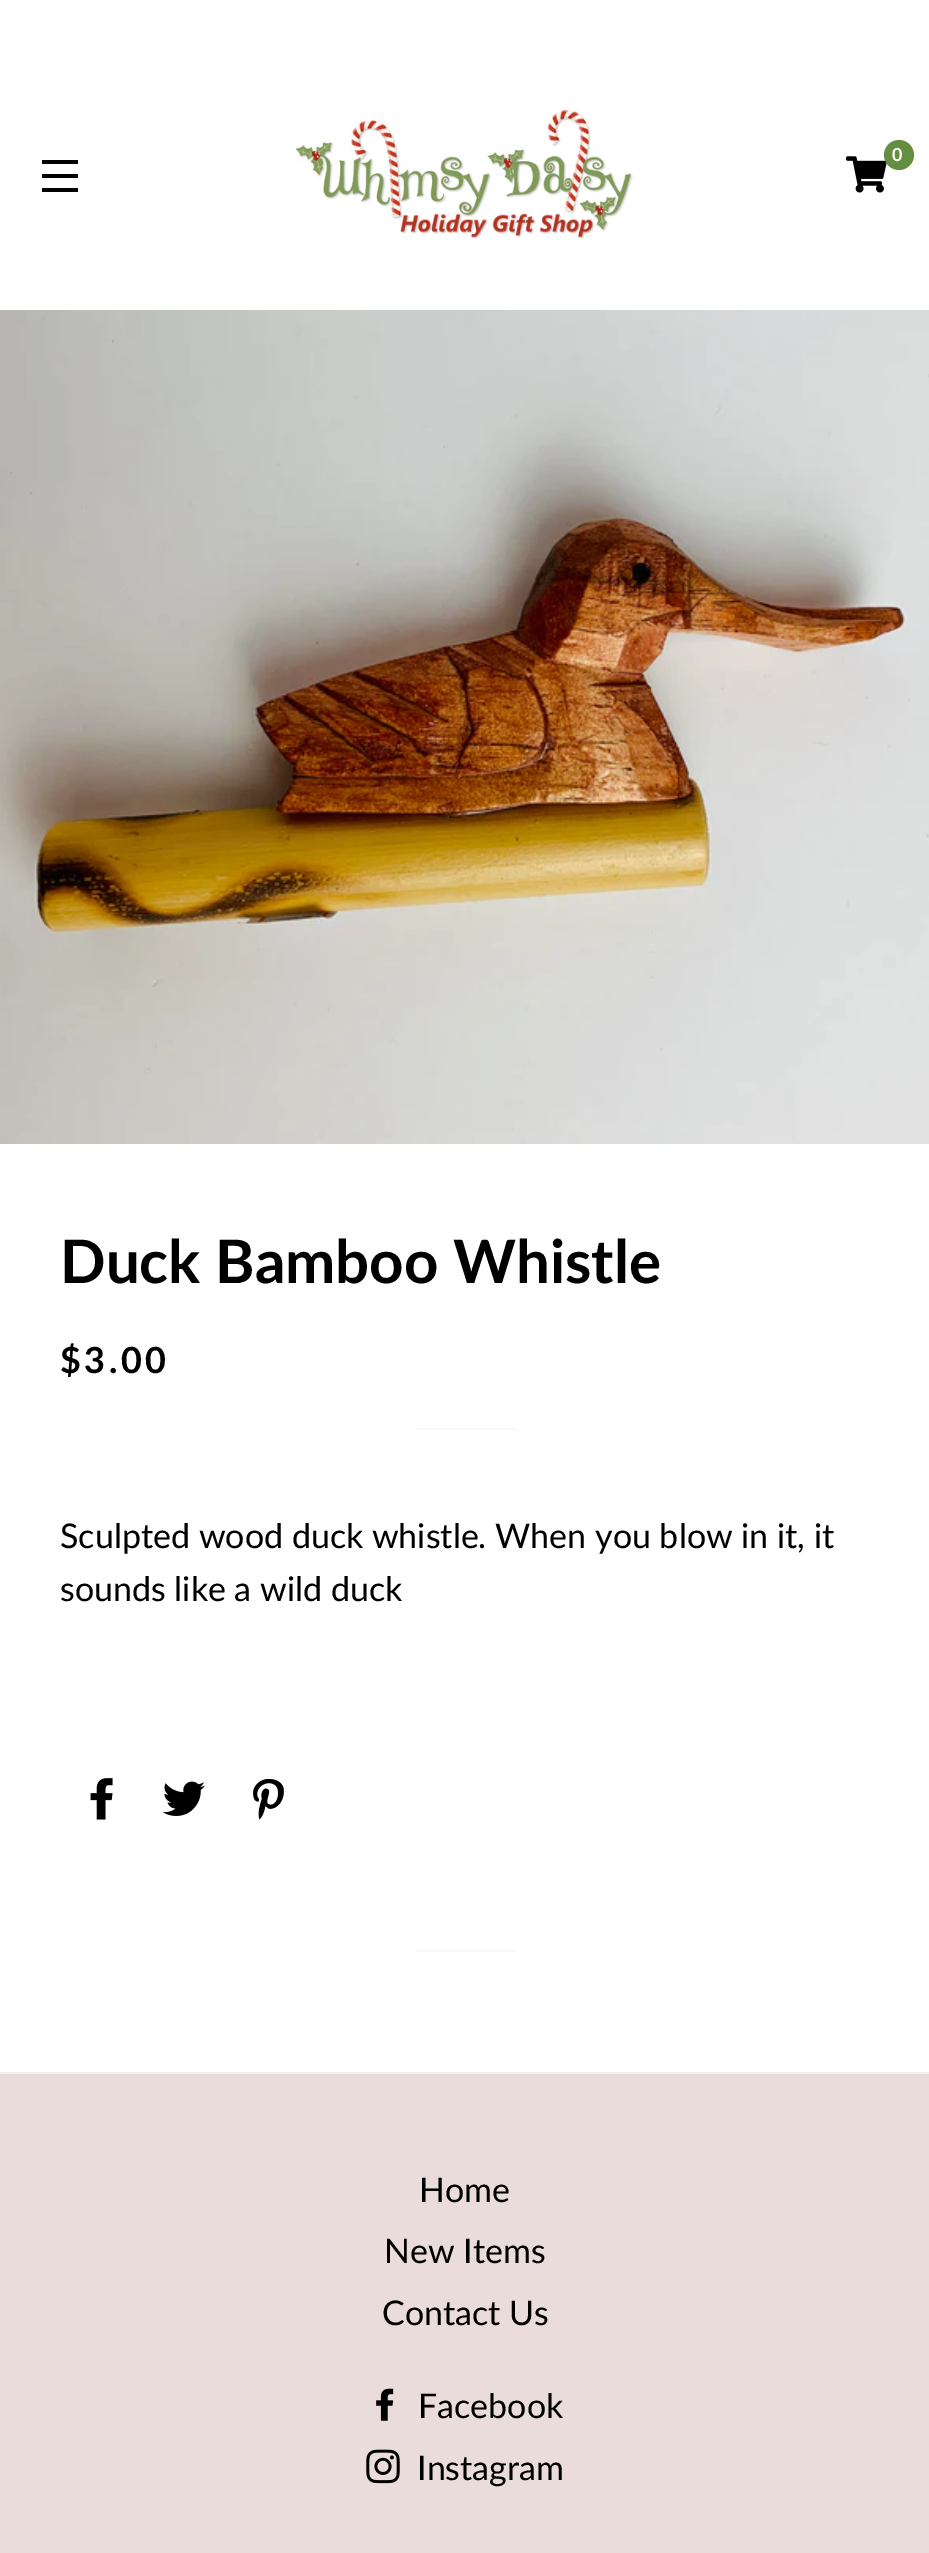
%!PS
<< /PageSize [929 2553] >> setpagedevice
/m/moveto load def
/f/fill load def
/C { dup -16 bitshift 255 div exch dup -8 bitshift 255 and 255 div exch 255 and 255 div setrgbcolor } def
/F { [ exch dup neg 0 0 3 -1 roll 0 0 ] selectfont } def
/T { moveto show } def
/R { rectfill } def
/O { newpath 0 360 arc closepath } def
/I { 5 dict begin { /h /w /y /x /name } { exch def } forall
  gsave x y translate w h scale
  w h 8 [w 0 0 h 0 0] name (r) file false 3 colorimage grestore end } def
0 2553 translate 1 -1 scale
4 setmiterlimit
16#FFFFFF C
0 0 929 2553 R
(1.rgb) 296 110 338 130 I
(2.rgb) 846 156 41 37 I
16#648F41 C
899 155 15 O f
/Lato-Bold 18 F
16#FFFFFF C
892 161 m 3 0 (0) ashow
16#000000 C
42 160 36 4 R
42 174 36 4 R
42 188 36 4 R
(3.rgb) 0 310 929 834 I
/Lato-Bold 60 F
(Duck Bamboo Whistle) 60 1283 T
/Lato-Bold 36 F
60 1373 m 3.5 0 ($3.00) ashow
16#F9F9F9 C
416 1428 100 2 R
/Lato-Regular 34 F
16#000000 C
(Sculpted wood duck whistle. When you blow in it, it) 60 1548 T
(sounds like a wild duck) 60 1601 T
(4.rgb) 90 1778 23 42 I
(5.rgb) 162 1781 43 35 I
(6.rgb) 253 1778 31 42 I
16#F9F9F9 C
416 1950 100 2 R
16#EADCDA C
0 2074 929 479 R
16#EFEFEF C
0 2072 929 2 R
16#000000 C
(Home) 419 2202 T
(New Items) 384 2263 T
(Contact Us) 382 2325 T
(7.rgb) 376 2388 18 33 I
(Facebook) 418 2418 T
(8.rgb) 366 2449 34 35 I
(Instagram) 417 2480 T
showpage
